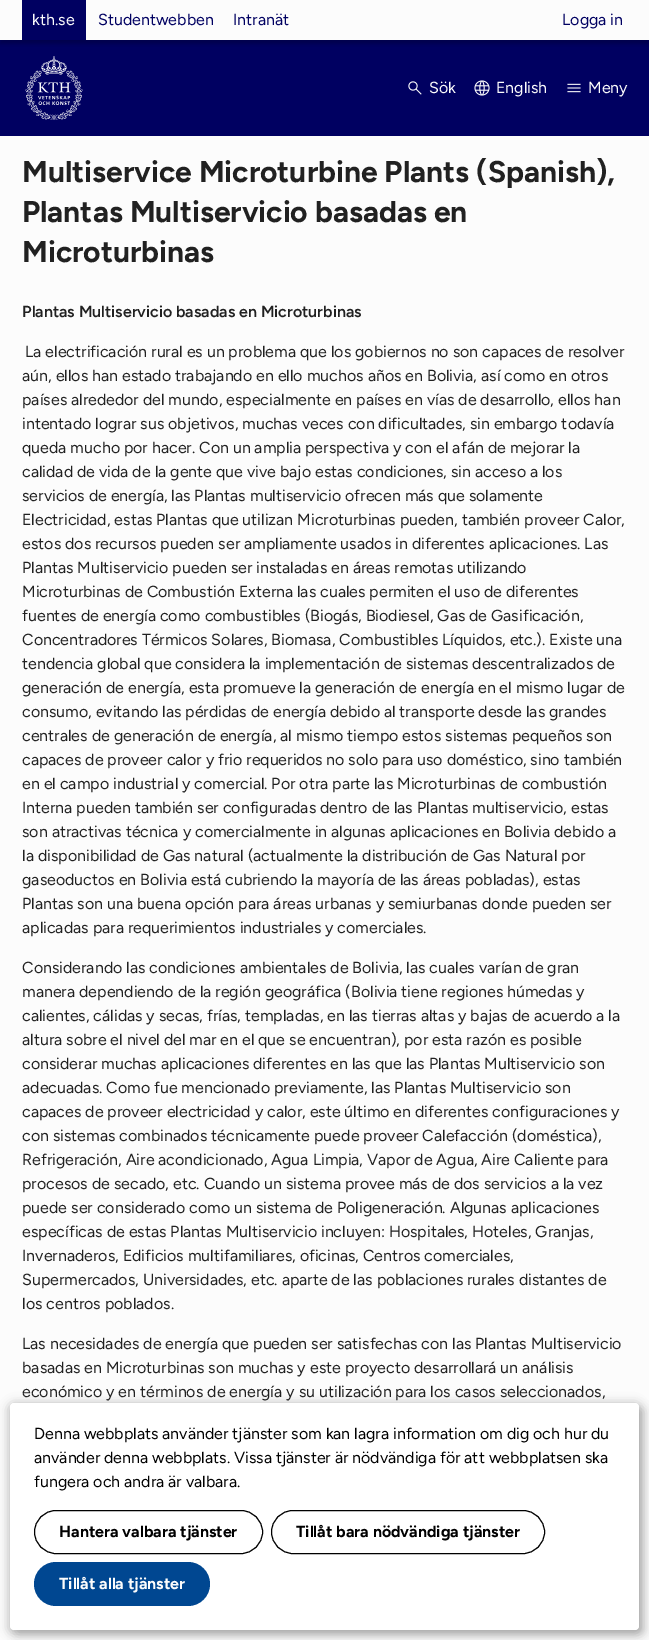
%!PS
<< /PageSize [649 1640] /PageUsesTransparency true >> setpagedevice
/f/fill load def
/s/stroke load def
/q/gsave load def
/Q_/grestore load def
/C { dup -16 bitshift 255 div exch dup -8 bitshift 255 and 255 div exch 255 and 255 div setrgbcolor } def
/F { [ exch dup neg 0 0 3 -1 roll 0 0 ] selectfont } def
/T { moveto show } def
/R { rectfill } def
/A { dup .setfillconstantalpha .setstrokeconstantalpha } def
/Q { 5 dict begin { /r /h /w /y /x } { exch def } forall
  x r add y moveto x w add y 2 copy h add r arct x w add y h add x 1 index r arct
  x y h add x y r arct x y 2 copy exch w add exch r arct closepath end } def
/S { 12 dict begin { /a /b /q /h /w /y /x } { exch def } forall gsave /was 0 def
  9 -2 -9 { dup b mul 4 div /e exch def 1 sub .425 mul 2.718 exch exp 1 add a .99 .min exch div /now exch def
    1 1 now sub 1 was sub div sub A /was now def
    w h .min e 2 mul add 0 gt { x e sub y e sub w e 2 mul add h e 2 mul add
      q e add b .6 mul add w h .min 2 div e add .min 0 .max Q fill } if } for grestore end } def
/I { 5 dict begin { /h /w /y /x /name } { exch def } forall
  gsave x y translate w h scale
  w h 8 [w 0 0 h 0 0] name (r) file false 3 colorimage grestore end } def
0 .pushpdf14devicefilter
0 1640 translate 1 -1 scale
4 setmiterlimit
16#FCFCFC C
0 0 649 1640 R
16#000061 C
0 40 649 96 R
q
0 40 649 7 rectclip
16#000000 C
0 4 649 40 0 2 .2 S
Q_
22 0 64 40 R
/Figtree-Regular 16 F
16#FCFCFC C
(kth.se) 32 25 T
16#000061 C
(Studentwebben) 98 25 T
(Intranät) 233 25 T
(Logga in) 562 25 T
(1.rgb) 25 56 58 64 I
(2.rgb) 408 81 14 14 I
16#FCFCFC C
(Sök) 429 93 T
(3.rgb) 474 80 16 16 I
(English) 496 93 T
(4.rgb) 567 83 14 10 I
(Meny) 588 93 T
/Figtree-Bold 30 F
16#212121 C
(Multiservice Microturbine Plants \(Spanish\),) 22 182 T
(Plantas Multiservicio basadas en) 22 222 T
(Microturbinas) 22 262 T
/Figtree-SemiBold 16 F
(Plantas Multiservicio basadas en Microturbinas) 22 317 T
/Figtree-Regular 16 F
(La electrificación rural es un problema que los gobiernos no son capaces de resolver) 25 357 T
(aún, ellos han estado trabajando en ello muchos años en Bolivia, así como en otros) 22 381 T
(países alrededor del mundo, especialmente en países en vías de desarrollo, ellos han) 22 405 T
(intentado lograr sus objetivos, muchas veces con dificultades, sin embargo todavía) 22 429 T
(queda mucho por hacer. Con un amplia perspectiva y con el afán de mejorar la) 22 453 T
(calidad de vida de la gente que vive bajo estas condiciones, sin acceso a los) 22 477 T
(servicios de energía, las Plantas multiservicio ofrecen más que solamente) 22 501 T
(Electricidad, estas Plantas que utilizan Microturbinas pueden, también proveer Calor,) 22 525 T
(estos dos recursos pueden ser ampliamente usados in diferentes aplicaciones. Las) 22 549 T
(Plantas Multiservicio pueden ser instaladas en áreas remotas utilizando) 22 573 T
(Microturbinas de Combustión Externa las cuales permiten el uso de diferentes) 22 597 T
(fuentes de energía como combustibles \(Biogás, Biodiesel, Gas de Gasificación,) 22 621 T
(Concentradores Térmicos Solares, Biomasa, Combustibles Líquidos, etc.\). Existe una) 22 645 T
(tendencia global que considera la implementación de sistemas descentralizados de) 22 669 T
(generación de energía, esta promueve la generación de energía en el mismo lugar de) 22 693 T
(consumo, evitando las pérdidas de energía debido al transporte desde las grandes) 22 717 T
(centrales de generación de energía, al mismo tiempo estos sistemas pequeños son) 22 741 T
(capaces de proveer calor y frio requeridos no solo para uso doméstico, sino también) 22 765 T
(en el campo industrial y comercial. Por otra parte las Microturbinas de combustión) 22 789 T
(Interna pueden también ser configuradas dentro de las Plantas multiservicio, estas) 22 813 T
(son atractivas técnica y comercialmente in algunas aplicaciones en Bolivia debido a) 22 837 T
(la disponibilidad de Gas natural \(actualmente la distribución de Gas Natural por) 22 861 T
(gaseoductos en Bolivia está cubriendo la mayoría de las áreas pobladas\), estas) 22 885 T
(Plantas son una buena opción para áreas urbanas y semiurbanas donde pueden ser) 22 909 T
(aplicadas para requerimientos industriales y comerciales.) 22 933 T
(Considerando las condiciones ambientales de Bolivia, las cuales varían de gran) 22 973 T
(manera dependiendo de la región geográfica \(Bolivia tiene regiones húmedas y) 22 997 T
(calientes, cálidas y secas, frías, templadas, en las tierras altas y bajas de acuerdo a la) 22 1021 T
(altura sobre el nivel del mar en el que se encuentran\), por esta razón es posible) 22 1045 T
(considerar muchas aplicaciones diferentes en las que las Plantas Multiservicio son) 22 1069 T
(adecuadas. Como fue mencionado previamente, las Plantas Multiservicio son) 22 1093 T
(capaces de proveer electricidad y calor, este último en diferentes configuraciones y) 22 1117 T
(con sistemas combinados técnicamente puede proveer Calefacción \(doméstica\),) 22 1141 T
(Refrigeración, Aire acondicionado, Agua Limpia, Vapor de Agua, Aire Caliente para) 22 1165 T
(procesos de secado, etc. Cuando un sistema provee más de dos servicios a la vez) 22 1189 T
(puede ser considerado como un sistema de Poligeneración. Algunas aplicaciones) 22 1213 T
(específicas de estas Plantas Multiservicio incluyen: Hospitales, Hoteles, Granjas,) 22 1237 T
(Invernaderos, Edificios multifamiliares, oficinas, Centros comerciales,) 22 1261 T
(Supermercados, Universidades, etc. aparte de las poblaciones rurales distantes de) 22 1285 T
(los centros poblados.) 22 1309 T
(Las necesidades de energía que pueden ser satisfechas con las Plantas Multiservicio) 22 1349 T
(basadas en Microturbinas son muchas y este proyecto desarrollará un análisis) 22 1373 T
(económico y en términos de energía y su utilización para los casos seleccionados,) 22 1397 T
16#000000 C
15 1408 629 227 4 5 .19 S
8 1403 633 231 6 5 .2 S
16#FFFFFF C
10 1403 629 227 4 Q f
16#000000 C
(Denna webbplats använder tjänster som kan lagra information om dig och hur du) 34 1439 T
(använder denna webbplats. Vissa tjänster är nödvändiga för att webbplatsen ska) 34 1463 T
(fungera och andra är valbara.) 34 1487 T
34.5 1510.5 228 43 21.5 Q s
/Figtree-Bold 16 F
(Hantera valbara tjänster) 59 1537 T
271.5 1510.5 273 43 21.5 Q s
(Tillåt bara nödvändiga tjänster) 296 1537 T
16#004791 C
34 1562 176 44 22 Q f
16#FCFCFC C
(Tillåt alla tjänster) 59 1589 T
.poppdf14devicefilter showpage
